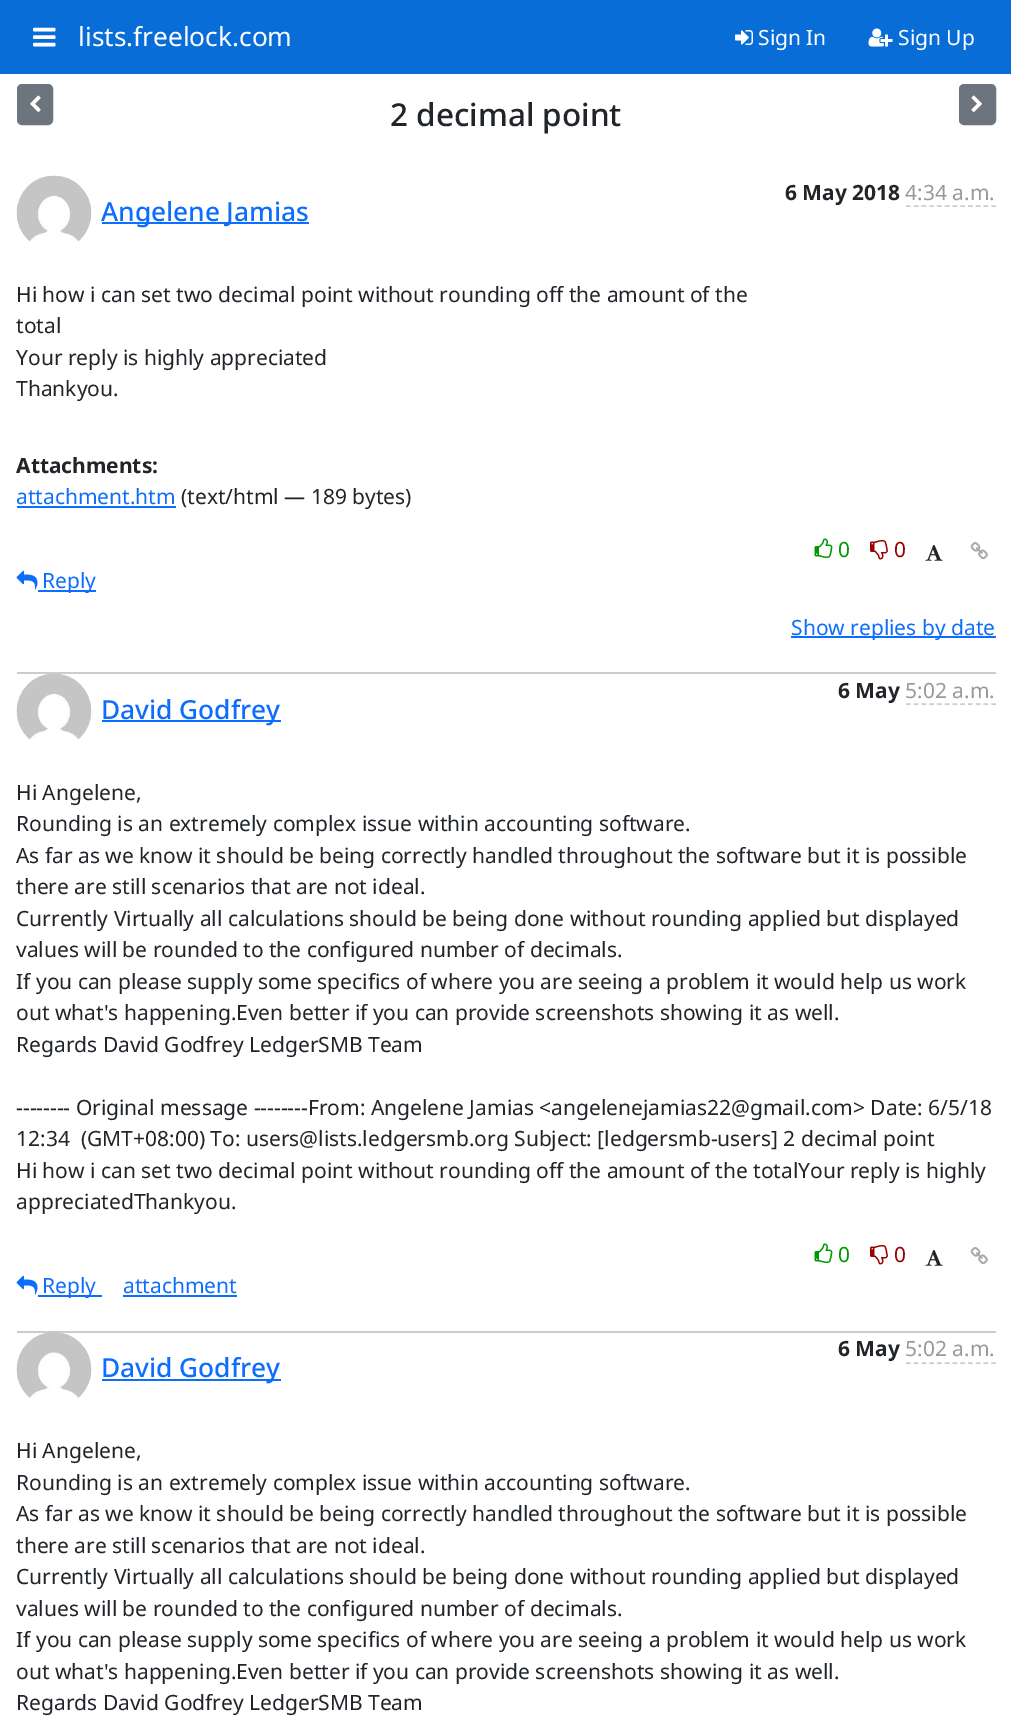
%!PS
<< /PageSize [1011 1724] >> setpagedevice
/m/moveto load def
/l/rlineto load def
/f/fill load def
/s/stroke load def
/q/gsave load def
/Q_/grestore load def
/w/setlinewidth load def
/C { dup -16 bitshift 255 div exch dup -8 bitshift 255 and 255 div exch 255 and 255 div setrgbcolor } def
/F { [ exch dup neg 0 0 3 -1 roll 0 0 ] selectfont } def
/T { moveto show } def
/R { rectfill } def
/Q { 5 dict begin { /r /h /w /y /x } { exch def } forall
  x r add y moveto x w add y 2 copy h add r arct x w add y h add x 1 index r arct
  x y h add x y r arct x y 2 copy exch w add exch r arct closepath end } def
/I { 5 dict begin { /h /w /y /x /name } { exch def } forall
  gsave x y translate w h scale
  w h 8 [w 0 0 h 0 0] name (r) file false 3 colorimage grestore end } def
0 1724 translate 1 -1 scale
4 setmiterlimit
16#FFFFFF C
0 0 1011 1724 R
16#086DD7 C
0 0 1011 74 R
(1.rgb) 33 27 23 20 I
/NotoSans-Regular 26.25 F
16#FFFFFF C
(lists.freelock.com) 78 46 T
(2.rgb) 735 30 18 15 I
/NotoSans-Regular 21 F
(Sign In) 758 45 T
(3.rgb) 868 28 25 19 I
(Sign Up) 898 45 T
16#6C757D C
18 85 34 39 4 Q q f Q_
2 w
s
(4.rgb) 30 95 11 17 I
/NotoSans-Medium 31.5 F
16#212529 C
(2 decimal point) 390 126 T
16#6C757D C
960 85 35 39 4 Q q f Q_
s
(5.rgb) 971 95 11 17 I
/NotoSans-Bold 21 F
16#212529 C
(6 May 2018) 785 200 T
/NotoSans-Regular 21 F
16#999999 C
(4:34 a.m.) 905 200 T
16#CCCCCC C
1.5 w
[4.5 3.27] 0 setdash
906 206 m 90 0 l s
(6.rgb) 16 175 76 67 I
16#0D6EFD C
102 222 207 2 R
/NotoSans-Medium 26.25 F
(Angelene Jamias) 101 221 T
/NotoSans-Regular 21 F
16#212529 C
(Hi how i can set two decimal point without rounding off the amount of the) 16 302 T
(total) 16 333 T
(Your reply is highly appreciated) 16 365 T
(Thankyou.) 16 396 T
/NotoSans-Bold 21 F
(Attachments:) 16 473 T
/NotoSans-Regular 21 F
16#0D6EFD C
(attachment.htm) 16 504 T
17 506 159 2 R
16#212529 C
(\(text/html — 189 bytes\)) 181 504 T
(7.rgb) 814 538 19 20 I
16#009900 C
(0) 838 557 T
(8.rgb) 870 540 18 20 I
16#990000 C
(0) 894 557 T
(9.rgb) 925 545 18 16 I
(10.rgb) 970 542 18 18 I
(11.rgb) 16 570 22 20 I
16#0D6EFD C
38 590 58 2 R
(Reply) 42 588 T
791 636 205 2 R
(Show replies by date) 791 635 T
16#CCCCCC C
17 672 979 2 R
/NotoSans-Bold 21 F
16#212529 C
(6 May) 838 698 T
/NotoSans-Regular 21 F
16#999999 C
(5:02 a.m.) 905 698 T
16#CCCCCC C
906 704 m 90 0 l s
(12.rgb) 16 674 76 66 I
16#0D6EFD C
102 720 179 2 R
/NotoSans-Medium 26.25 F
(David Godfrey) 101 719 T
/NotoSans-Regular 21 F
16#212529 C
(Hi Angelene,) 16 800 T
(Rounding is an extremely complex issue within accounting software.) 16 831 T
(As far as we know it should be being correctly handled throughout the software but it is possible) 16 863 T
(there are still scenarios that are not ideal.) 16 894 T
(Currently Virtually all calculations should be being done without rounding applied but displayed) 16 926 T
(values will be rounded to the configured number of decimals.) 16 957 T
(If you can please supply some specifics of where you are seeing a problem it would help us work) 16 989 T
(out what's happening.Even better if you can provide screenshots showing it as well.) 16 1020 T
(Regards David Godfrey LedgerSMB Team) 16 1052 T
(-------- Original message --------From: Angelene Jamias <angelenejamias22@gmail.com> Date: 6/5/18) 16 1115 T
(12:34  \(GMT+08:00\) To: users@lists.ledgersmb.org Subject: [ledgersmb-users] 2 decimal point) 16 1146 T
(Hi how i can set two decimal point without rounding off the amount of the totalYour reply is highly) 16 1178 T
(appreciatedThankyou.) 16 1209 T
(7.rgb) 814 1243 19 20 I
16#009900 C
(0) 838 1262 T
(8.rgb) 870 1245 18 20 I
16#990000 C
(0) 894 1262 T
(9.rgb) 925 1250 18 16 I
(10.rgb) 970 1247 18 18 I
(11.rgb) 16 1275 22 20 I
16#0D6EFD C
38 1295 64 2 R
(Reply) 42 1293 T
(attachment) 123 1293 T
123 1295 114 2 R
16#CCCCCC C
17 1331 979 2 R
/NotoSans-Bold 21 F
16#212529 C
(6 May) 838 1356 T
/NotoSans-Regular 21 F
16#999999 C
(5:02 a.m.) 905 1356 T
16#CCCCCC C
906 1363 m 90 0 l s
(13.rgb) 16 1332 76 66 I
16#0D6EFD C
102 1379 179 2 R
/NotoSans-Medium 26.25 F
(David Godfrey) 101 1377 T
/NotoSans-Regular 21 F
16#212529 C
(Hi Angelene,) 16 1458 T
(Rounding is an extremely complex issue within accounting software.) 16 1490 T
(As far as we know it should be being correctly handled throughout the software but it is possible) 16 1521 T
(there are still scenarios that are not ideal.) 16 1553 T
(Currently Virtually all calculations should be being done without rounding applied but displayed) 16 1584 T
(values will be rounded to the configured number of decimals.) 16 1616 T
(If you can please supply some specifics of where you are seeing a problem it would help us work) 16 1647 T
(out what's happening.Even better if you can provide screenshots showing it as well.) 16 1679 T
(Regards David Godfrey LedgerSMB Team) 16 1710 T
showpage
